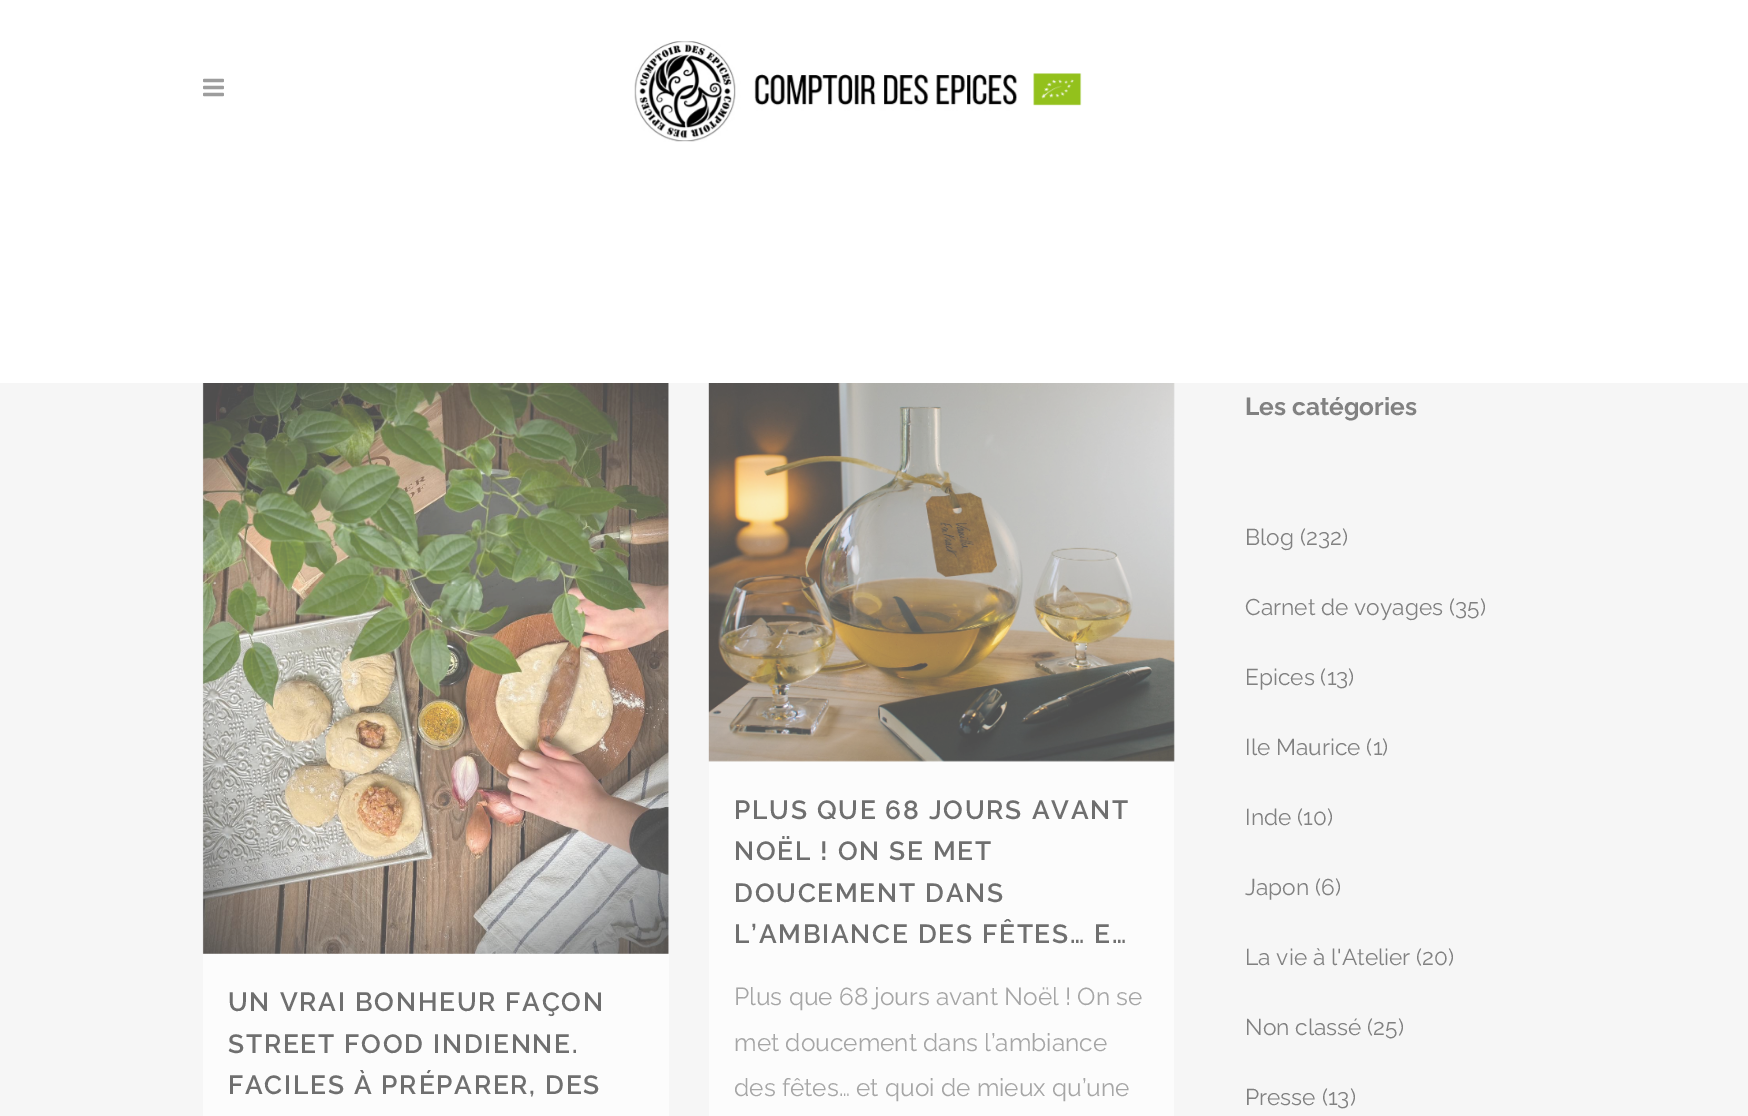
%!PS
<< /PageSize [1748 1116] >> setpagedevice
/m/moveto load def
/C { dup -16 bitshift 255 div exch dup -8 bitshift 255 and 255 div exch 255 and 255 div setrgbcolor } def
/F { [ exch dup neg 0 0 3 -1 roll 0 0 ] selectfont } def
/T { moveto show } def
/R { rectfill } def
/I { 5 dict begin { /h /w /y /x /name } { exch def } forall
  gsave x y translate w h scale
  w h 8 [w 0 0 h 0 0] name (r) file false 3 colorimage grestore end } def
0 1116 translate 1 -1 scale
4 setmiterlimit
16#F6F6F6 C
0 0 1748 1116 R
16#FFFFFF C
0 0 1748 383 R
(1.rgb) 203 78 21 19 I
(2.rgb) 634 41 448 101 I
(3.rgb) 202 383 467 571 I
16#FCFCFC C
203 954 466 162 R
/Raleway-SemiBold 26.25 F
16#6F6F6F C
228 1011 m 1.75 0 (UN VRAI BONHEUR FAÇON) ashow
228 1053 m 1.75 0 (STREET FOOD INDIENNE.) ashow
228 1094 m 1.75 0 (FACILES À PRÉPARER, DES) ashow
16#FCFCFC C
709 761 465 355 R
(4.rgb) 708 383 467 379 I
16#6F6F6F C
734 819 m 1.75 0 (PLUS QUE 68 JOURS AVANT) ashow
734 860 m 1.75 0 (NOËL ! ON SE MET) ashow
734 902 m 1.75 0 (DOUCEMENT DANS) ashow
734 943 m 1.75 0 (L’AMBIANCE DES FÊTES… E…) ashow
/Raleway-Regular 24.5 F
16#A6A6A6 C
(Plus que 68 jours avant Noël ! On se) 734 1005 T
(met doucement dans l’ambiance) 734 1051 T
(des fêtes… et quoi de mieux qu’une) 734 1096 T
/Raleway-Bold 24.5 F
16#818181 C
(Les catégories) 1245 415 T
/Raleway-Regular 22.75 F
(Blog \(232\)) 1245 545 T
(Carnet de voyages \(35\)) 1245 615 T
(Epices \(13\)) 1245 685 T
(Ile Maurice \(1\)) 1245 755 T
(Inde \(10\)) 1245 825 T
(Japon \(6\)) 1245 895 T
(La vie à l'Atelier \(20\)) 1245 965 T
(Non classé \(25\)) 1245 1035 T
(Presse \(13\)) 1245 1105 T
showpage
